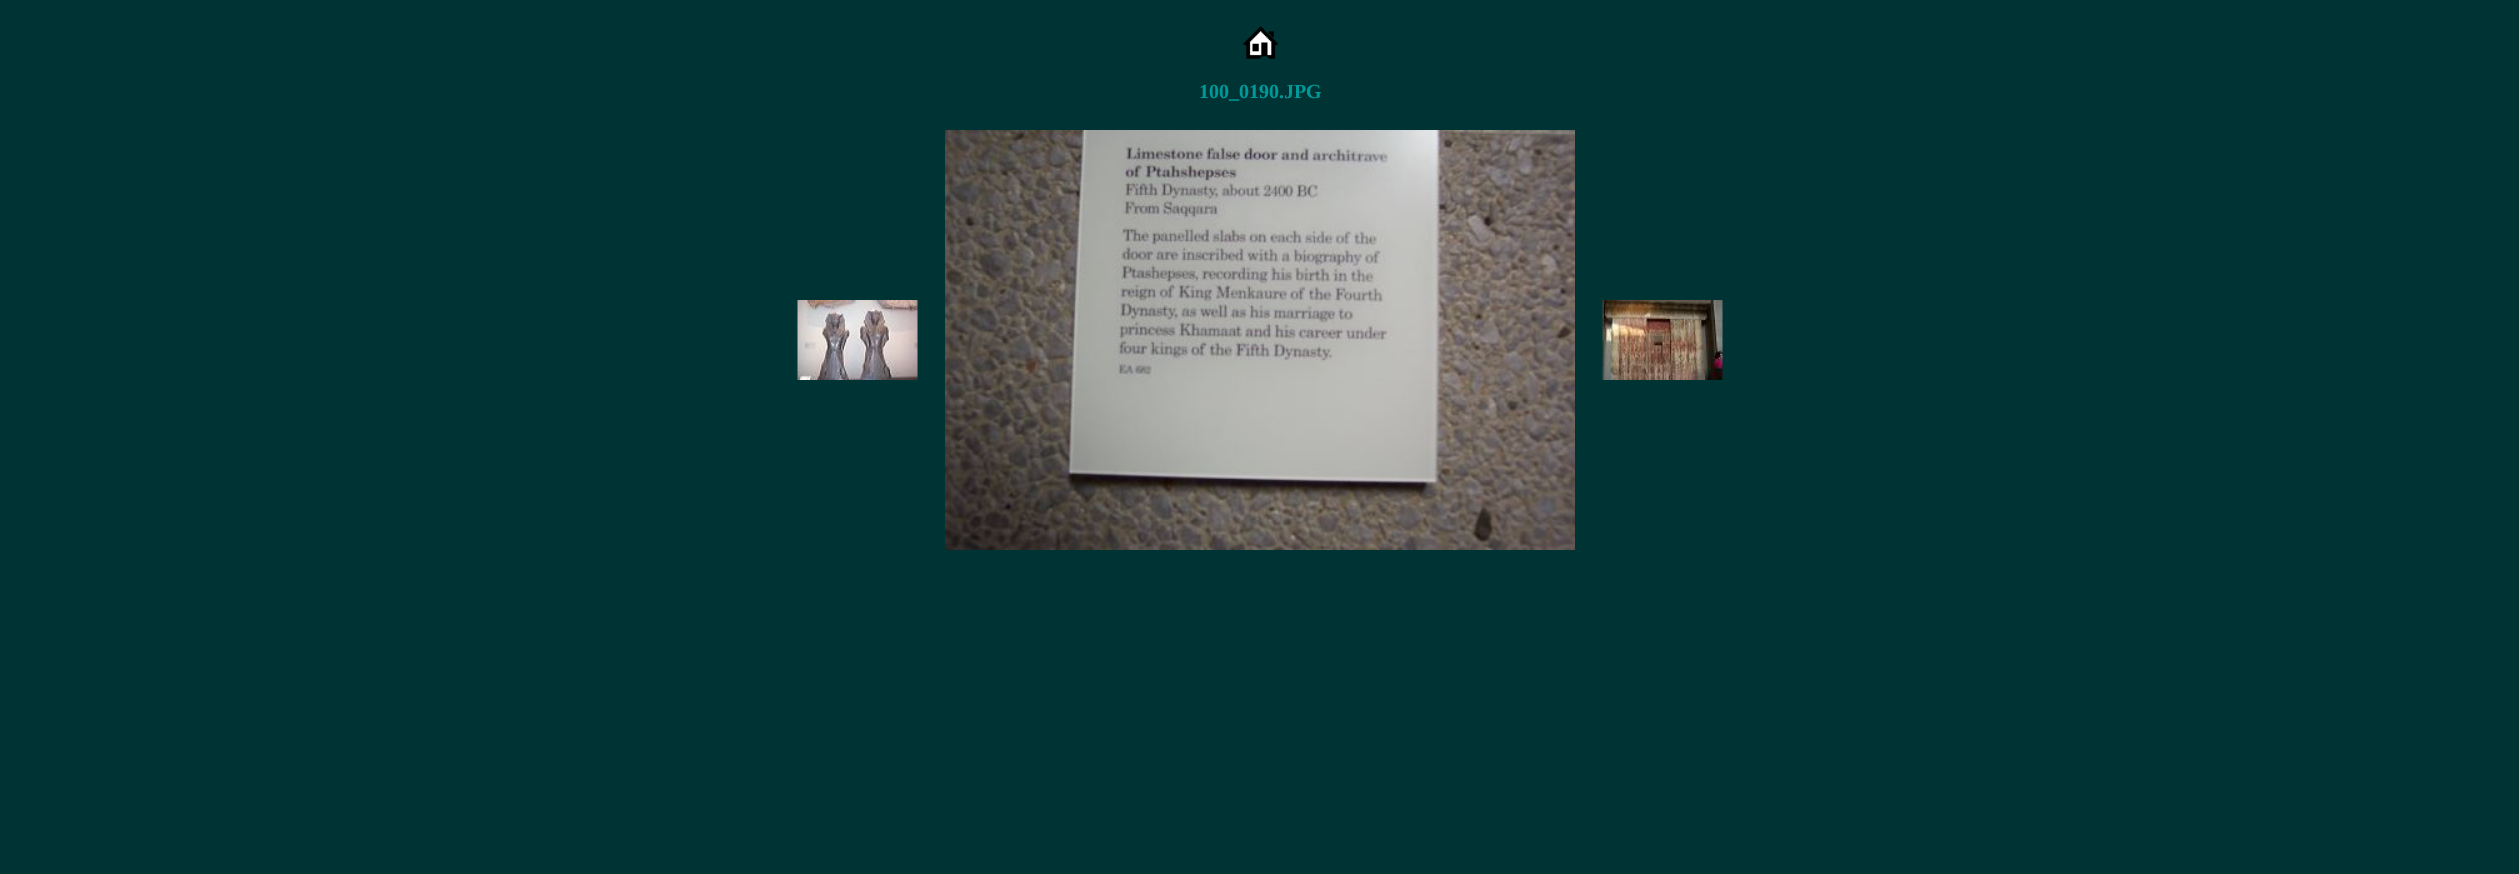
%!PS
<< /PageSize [2519 874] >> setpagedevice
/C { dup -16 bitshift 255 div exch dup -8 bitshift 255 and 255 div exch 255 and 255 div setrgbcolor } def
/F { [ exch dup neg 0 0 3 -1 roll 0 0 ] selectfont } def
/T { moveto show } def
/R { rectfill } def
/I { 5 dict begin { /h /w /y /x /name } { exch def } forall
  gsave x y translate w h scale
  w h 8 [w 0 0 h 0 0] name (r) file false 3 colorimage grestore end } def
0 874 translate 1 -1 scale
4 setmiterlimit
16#003333 C
0 0 2519 874 R
(1.rgb) 1243 26 35 33 I
/LiberationSerif-Bold 20 F
16#009999 C
(100_0190.JPG) 1199 98 T
(2.rgb) 797 300 121 80 I
(3.rgb) 945 130 630 420 I
(4.rgb) 1602 300 121 80 I
showpage
